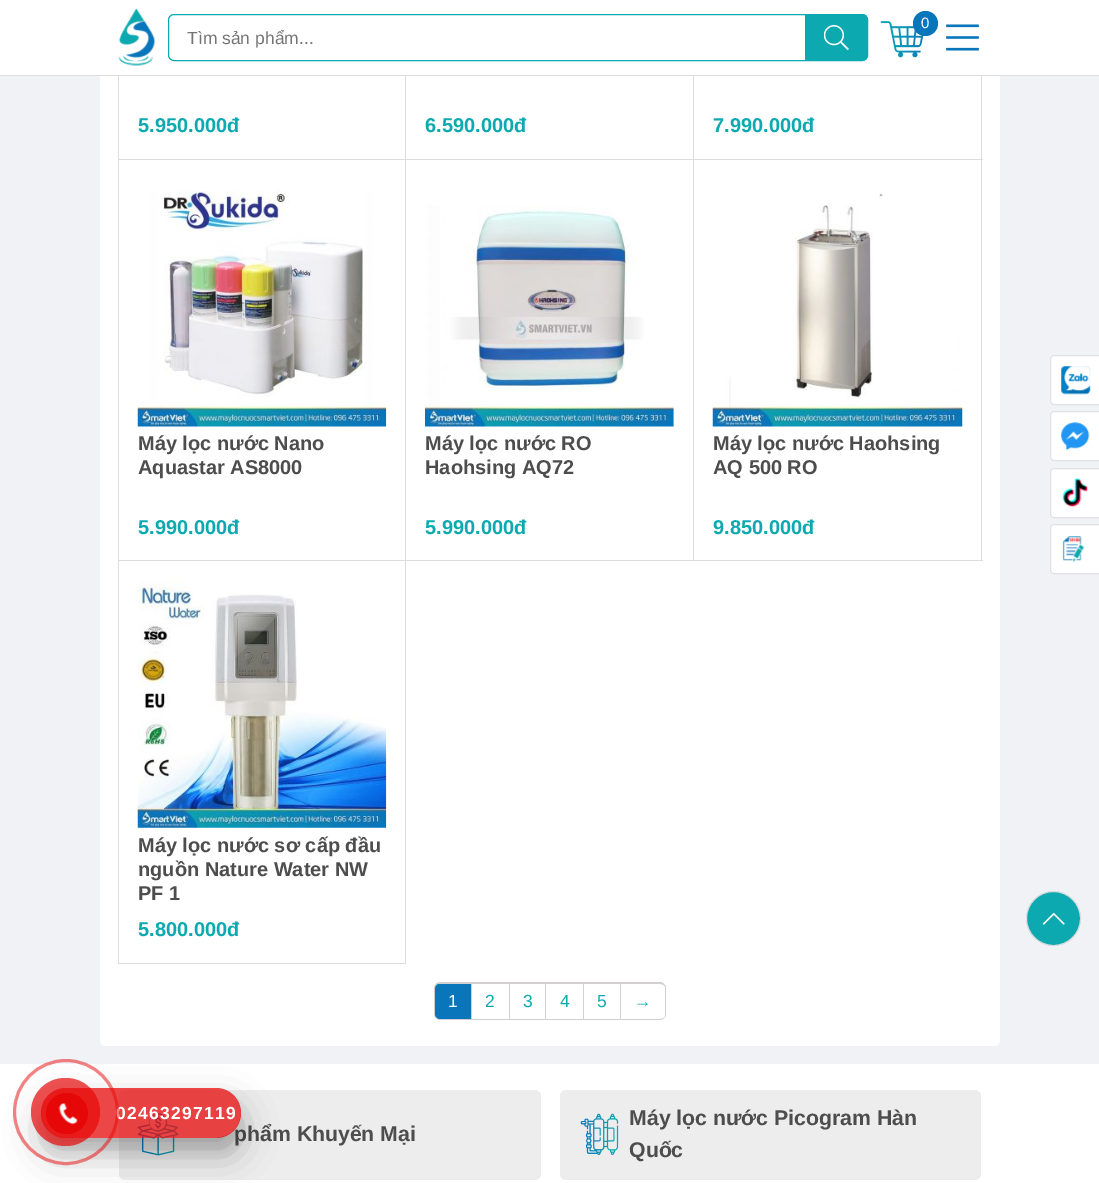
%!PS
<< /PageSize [1099 1183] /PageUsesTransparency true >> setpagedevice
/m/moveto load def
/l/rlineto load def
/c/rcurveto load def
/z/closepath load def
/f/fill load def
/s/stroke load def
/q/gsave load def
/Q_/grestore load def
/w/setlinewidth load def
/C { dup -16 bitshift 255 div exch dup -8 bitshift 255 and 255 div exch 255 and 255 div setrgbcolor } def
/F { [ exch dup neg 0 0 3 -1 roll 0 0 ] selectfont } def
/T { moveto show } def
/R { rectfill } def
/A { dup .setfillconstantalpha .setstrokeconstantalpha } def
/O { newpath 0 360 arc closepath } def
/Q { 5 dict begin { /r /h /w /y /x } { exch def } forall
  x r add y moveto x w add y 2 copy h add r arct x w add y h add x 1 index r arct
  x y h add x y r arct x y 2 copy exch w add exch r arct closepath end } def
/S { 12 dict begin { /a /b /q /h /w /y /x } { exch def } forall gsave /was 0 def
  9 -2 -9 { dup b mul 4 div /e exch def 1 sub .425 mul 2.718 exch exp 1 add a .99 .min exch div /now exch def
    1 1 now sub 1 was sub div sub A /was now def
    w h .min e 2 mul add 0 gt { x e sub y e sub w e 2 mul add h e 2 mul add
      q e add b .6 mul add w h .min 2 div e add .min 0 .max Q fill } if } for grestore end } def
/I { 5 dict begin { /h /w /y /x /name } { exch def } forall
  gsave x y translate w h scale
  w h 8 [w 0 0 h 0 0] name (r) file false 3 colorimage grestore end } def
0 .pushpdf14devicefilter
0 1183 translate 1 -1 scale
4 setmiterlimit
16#F0F2F5 C
0 0 1099 1183 R
16#FFFFFF C
100 -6 900 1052 6 Q f
0 0 1099 75 R
16#DDDDDD C
0 75 1099 1 R
(1.rgb) 118 8 37 58 I
16#0CA9B0 C
168.5 14.5 699 46 5.5 Q s
/LiberationSans-Regular 17.5 F
16#757575 C
(Tìm sản phẩm...) 187 44 T
16#0CA9B0 C
805 14 m 57 0 l 3.5 0 6 2.5 6 6 c 0 35 l 0 3.5 -2.5 6 -6 6 c -57 0 l z f
(2.rgb) 824 25 25 25 I
(3.rgb) 880 21 44 37 I
16#0976BC C
925.5 23.5 12.5 O f
/LiberationSans-Regular 15 F
16#FFFFFF C
(0) 921 28 T
(4.rgb) 946 24 33 27 I
16#DDDDDD C
405 76 1 888 R
118 159 288 1 R
118 76 1 84 R
/LiberationSans-Bold 20 F
16#0CA9B0 C
(5.950.000đ) 138 132 T
16#DDDDDD C
693 76 1 485 R
406 159 288 1 R
16#0CA9B0 C
(6.590.000đ) 425 132 T
16#DDDDDD C
981 76 1 485 R
694 159 289 1 R
16#0CA9B0 C
(7.990.000đ) 713 132 T
16#DDDDDD C
118 560 865 1 R
118 160 1 401 R
(5.rgb) 137 191 250 236 I
16#4D4D4D C
(Máy lọc nước Nano) 138 450 T
(Aquastar AS8000) 138 474 T
16#0CA9B0 C
(5.990.000đ) 138 534 T
(6.rgb) 425 205 249 222 I
16#4D4D4D C
(Máy lọc nước RO) 425 450 T
(Haohsing AQ72) 425 474 T
16#0CA9B0 C
(5.990.000đ) 425 534 T
(7.rgb) 712 192 251 235 I
16#4D4D4D C
(Máy lọc nước Haohsing) 713 450 T
(AQ 500 RO) 713 474 T
16#0CA9B0 C
(9.850.000đ) 713 534 T
16#DDDDDD C
118 963 288 1 R
118 561 1 403 R
(8.rgb) 137 580 250 248 I
16#4D4D4D C
(Máy lọc nước sơ cấp đầu) 138 852 T
(nguồn Nature Water NW) 138 876 T
(PF 1) 138 900 T
16#0CA9B0 C
(5.800.000đ) 138 936 T
16#D3CED2 C
440 982 m 220 0 l 3 0 6 3 6 7 c 0 25 l 0 3 -3 6 -6 6 c -220 0 l -3 0 -6 -3 -6 -6 c 0 -25 l 0 -4 3 -7 6 -7 c z 440 984 m 220 0 l 3 0 6 2 6 5 c 0 25 l 0 3 -3 5 -6 5 c -220 0 l -3 0 -5 -2 -5 -5 c 0 -25 l 0 -3 2 -5 5 -5 c z eofill
471 984 1 35 R
16#0976BC C
435 989 m 0 25 l 0 2.5 2 5 5 5 c 31 0 l 0 -35 l -32.5 0 l -2 .5 -3.5 2.5 -3.5 5 c z f
/LiberationSans-Regular 17.5 F
16#FFFFFF C
(1) 448 1007 T
16#D3CED2 C
509 984 1 35 R
16#0CA9B0 C
(2) 485 1007 T
16#D3CED2 C
545 984 1 35 R
16#0CA9B0 C
(3) 523 1007 T
16#D3CED2 C
583 984 1 35 R
16#0CA9B0 C
(4) 560 1007 T
16#D3CED2 C
620 984 1 35 R
16#0CA9B0 C
(5) 597 1007 T
16#D3CED2 C
666 1015 m -1 2 l 0 -31.5 l 1 2 l z f
16#0CA9B0 C
(→) 634 1007 T
16#FFFFFF C
0 1064 1099 119 R
16#EDEDED C
119 1090 422 90 6 Q f
(9.rgb) 137 1113 42 43 I
/LiberationSans-Bold 21.25 F
16#4D4D4D C
(phẩm Khuyến Mại) 234 1141 T
16#EDEDED C
560 1090 421 90 6 Q f
(10.rgb) 580 1113 39 42 I
16#4D4D4D C
(Máy lọc nước Picogram Hàn) 629 1125 T
(Quốc) 629 1157 T
16#0CA9B0 C
1053.5 918.5 27 O q f Q_
16#DDDDDD C
s
(11.rgb) 1042 912 23 13 I
16#FFFFFF C
1050.5 355.5 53 49 3.5 Q q f Q_
16#E1E1E1 C
s
(12.rgb) 1061 366 30 29 I
16#FFFFFF C
1050.5 411.5 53 49 3.5 Q q f Q_
16#E1E1E1 C
s
(13.rgb) 1061 422 29 29 I
16#FFFFFF C
1050.5 468.5 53 49 3.5 Q q f Q_
16#E1E1E1 C
s
(14.rgb) 1062 478 26 29 I
16#FFFFFF C
1050.5 524.5 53 49 3.5 Q q f Q_
16#E1E1E1 C
s
(15.rgb) 1062 536 23 27 I
q
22 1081 m 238 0 l 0 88 l -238 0 l z 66 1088 m 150 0 l 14 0 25 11 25 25 c 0 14 -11 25 -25 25 c -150 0 l -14 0 -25 -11 -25 -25 c 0 -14 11 -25 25 -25 c z eoclip newpath
16#000000 C
41 1100 200 50 25 6 .1 S
Q_
q
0 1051 m 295 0 l 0 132 l -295 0 l z 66 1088 m 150 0 l 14 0 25 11 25 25 c 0 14 -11 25 -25 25 c -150 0 l -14 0 -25 -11 -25 -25 c 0 -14 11 -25 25 -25 c z eoclip newpath
16#000000 C
41 1105 200 50 25 17.5 .25 S
Q_
0.75 A
16#E60808 C
41 1088 200 50 25 Q f
/LiberationSans-Bold 17.5 F
1 A
16#FFFFFF C
116 1119 m 1.25 0 (02463297119) ashow
0.5 A
16#E60808 C
3 w
66 1112 51.5 O s
0.7 A
31 1078 69 68 34 Q f
1 A
46 1093 42 41 20.5 Q f
(16.rgb) 58 1103 20 22 I
.poppdf14devicefilter showpage
